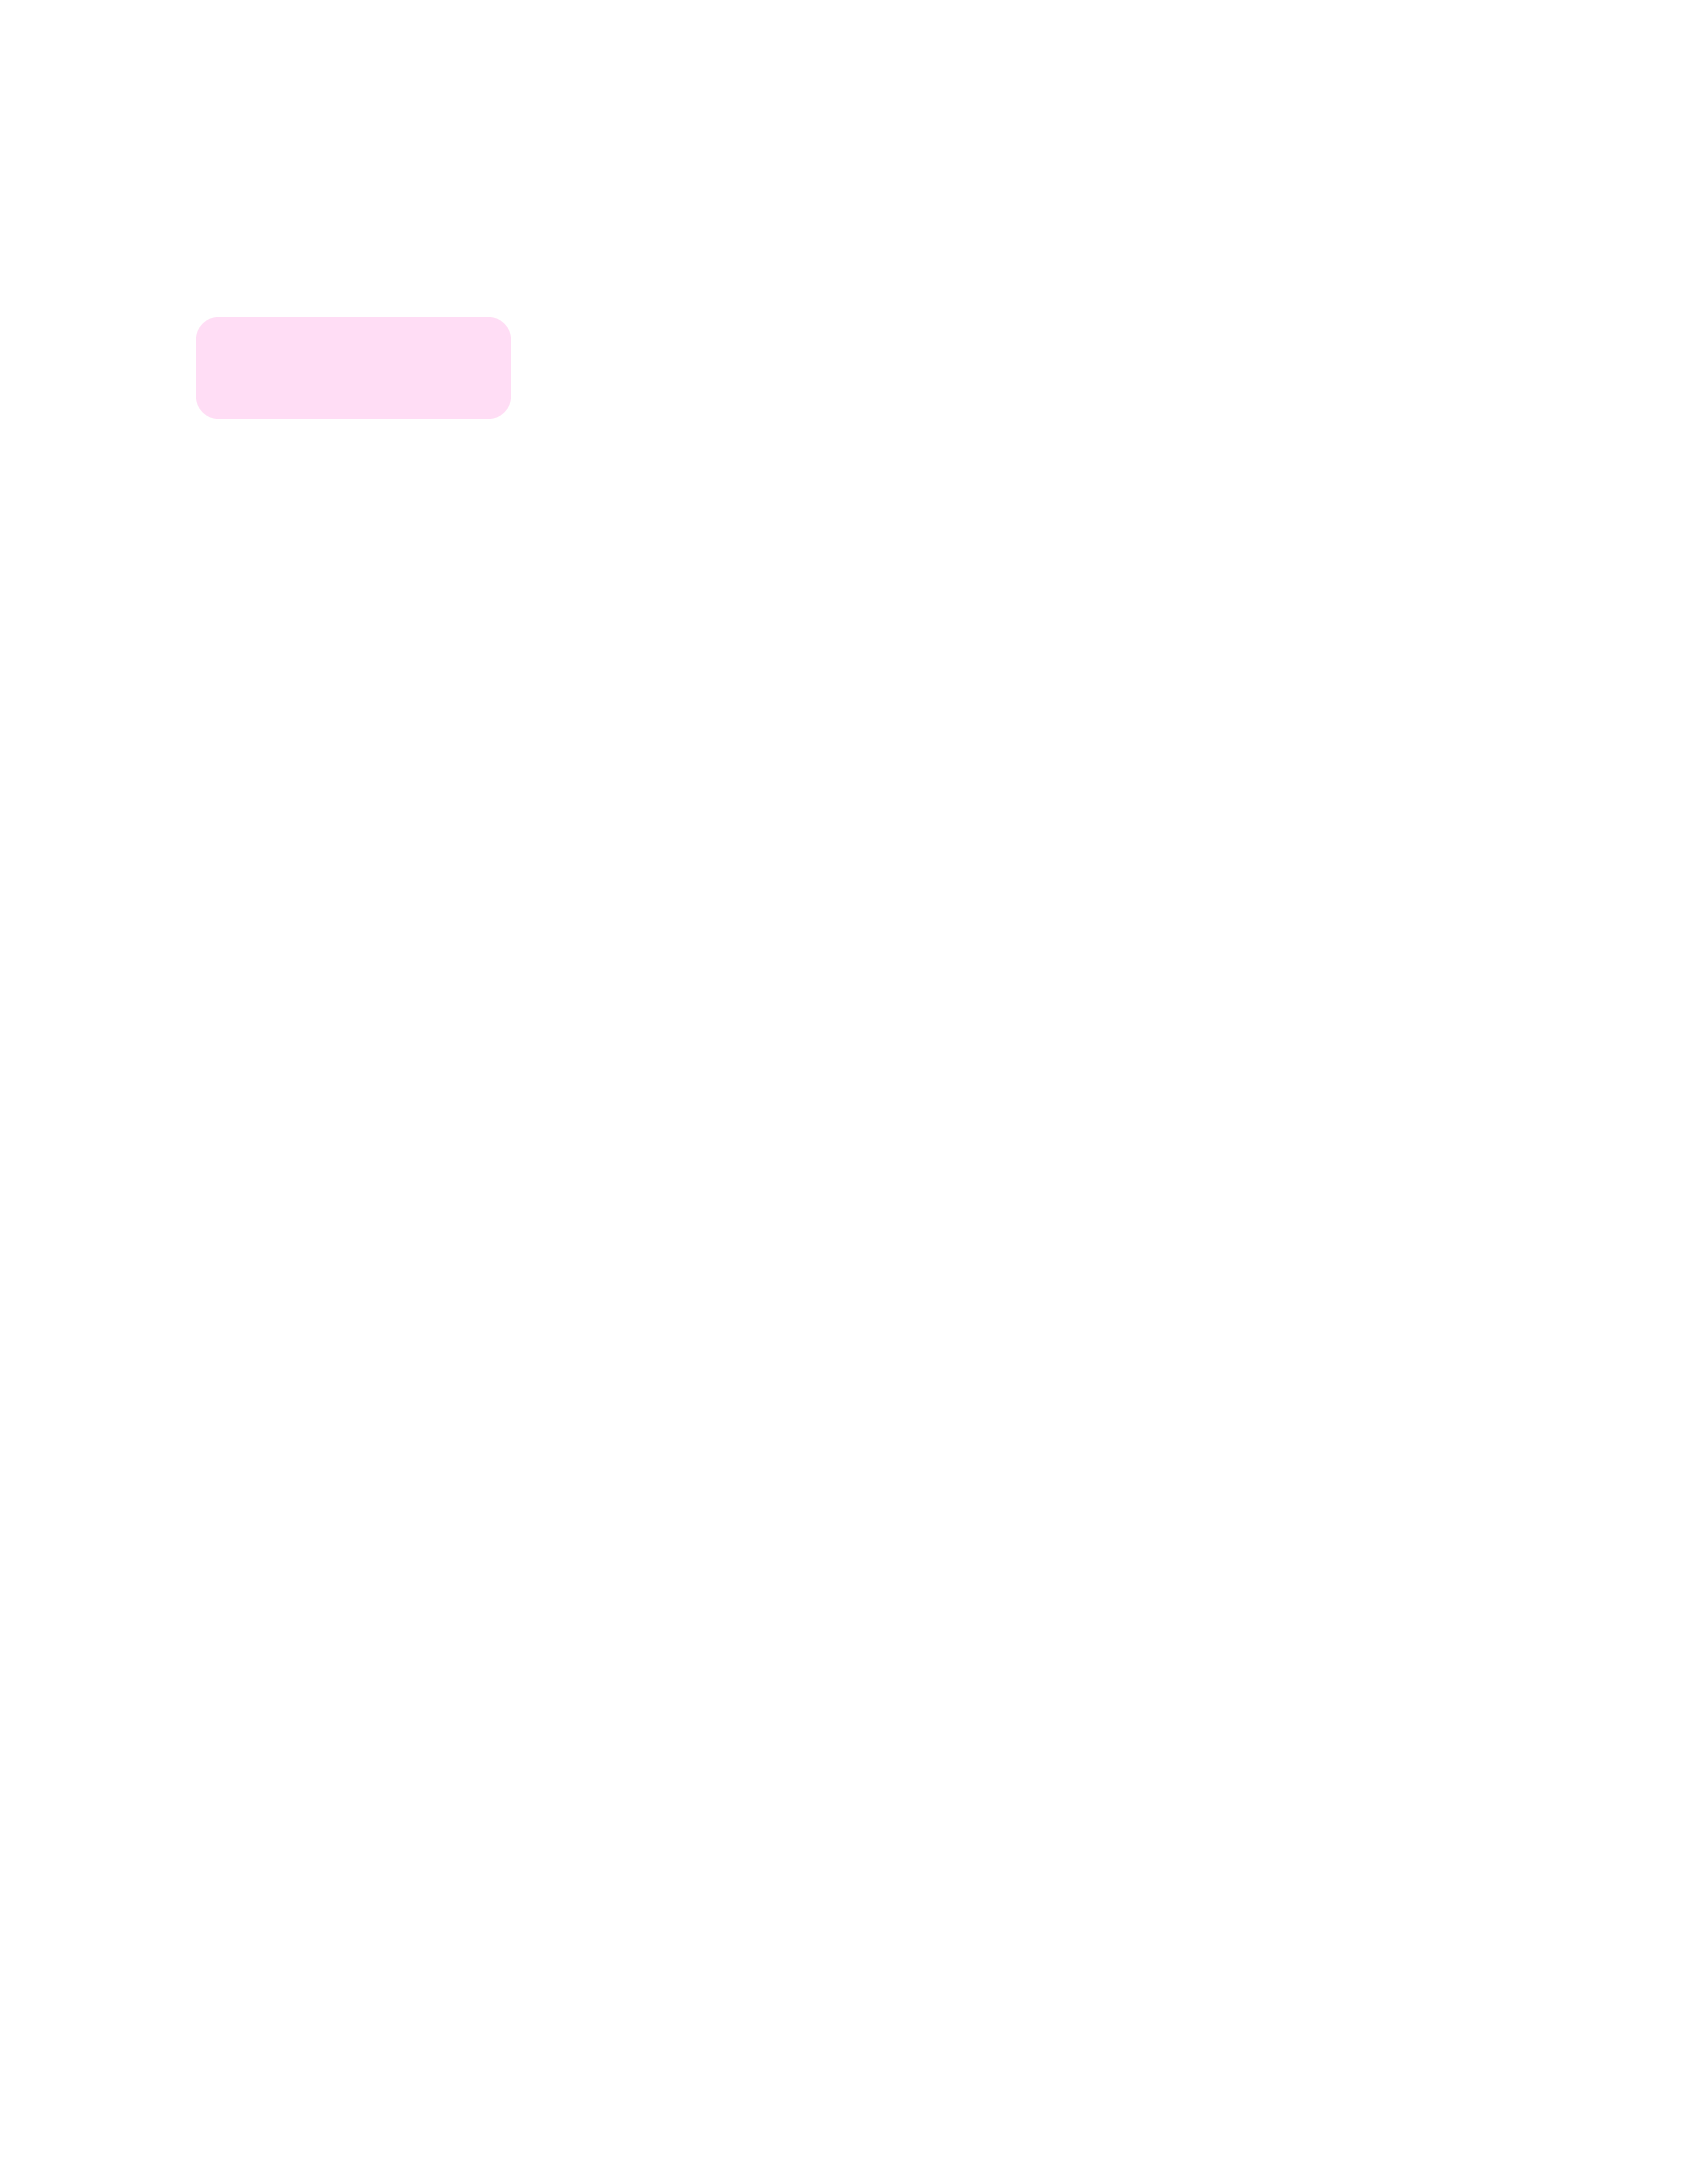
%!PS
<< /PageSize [1695 2179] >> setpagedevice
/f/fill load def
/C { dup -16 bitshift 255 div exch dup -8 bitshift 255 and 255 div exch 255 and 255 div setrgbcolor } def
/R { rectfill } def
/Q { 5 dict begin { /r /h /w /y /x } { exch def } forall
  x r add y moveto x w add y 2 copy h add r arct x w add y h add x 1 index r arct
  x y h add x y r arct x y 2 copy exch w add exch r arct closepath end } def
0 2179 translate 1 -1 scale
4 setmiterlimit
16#FFFFFF C
0 0 1695 2179 R
16#FFDDF5 C
196 317 315 102 23 Q f
showpage
